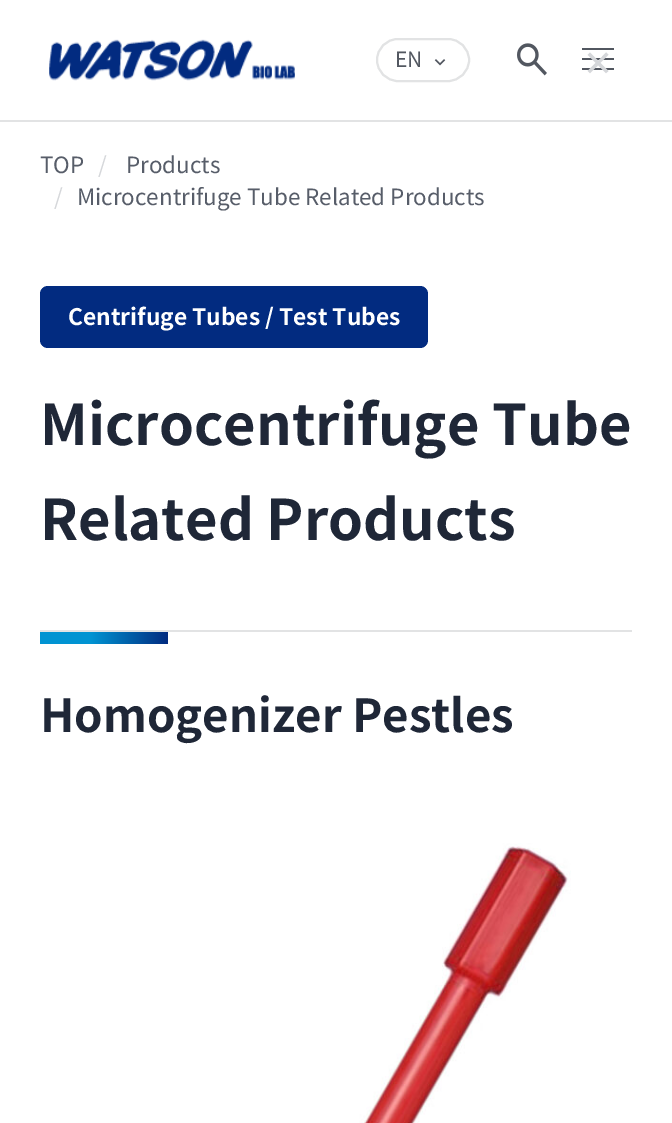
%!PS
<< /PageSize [672 1123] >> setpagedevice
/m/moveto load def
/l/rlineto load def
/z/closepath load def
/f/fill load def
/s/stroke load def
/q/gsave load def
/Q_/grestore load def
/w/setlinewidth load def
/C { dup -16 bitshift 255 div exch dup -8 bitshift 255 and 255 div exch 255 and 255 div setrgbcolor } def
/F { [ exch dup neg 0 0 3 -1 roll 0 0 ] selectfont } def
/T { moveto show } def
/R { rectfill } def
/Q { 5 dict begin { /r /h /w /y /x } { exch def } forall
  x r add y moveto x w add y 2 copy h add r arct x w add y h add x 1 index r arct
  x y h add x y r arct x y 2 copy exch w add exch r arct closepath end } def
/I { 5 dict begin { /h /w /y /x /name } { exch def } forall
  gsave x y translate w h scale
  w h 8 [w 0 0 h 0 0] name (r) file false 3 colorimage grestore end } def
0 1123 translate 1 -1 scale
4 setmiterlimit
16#FFFFFF C
0 0 672 1123 R
16#E2E3E4 C
0 120 672 2 R
(1.rgb) 49 39 246 42 I
2 w
377 39 92 42 21 Q s
/NotoSansJP-Regular 21 F
16#525760 C
(EN) 395 67 T
(2.rgb) 434 59 12 7 I
(3.rgb) 517 43 30 33 I
582 48 32 2 R
582 58 32 2 R
582 68 32 2 R
/DejaVuSans-Regular 36 F
16#D5D7DA C
(✕) 583 76 T
/NotoSansJP-Regular 22.4 F
16#575D69 C
(TOP) 40 173 T
16#D5D7DA C
(/) 98 173 T
16#575D69 C
(Products) 126 173 T
16#D5D7DA C
(/) 54 205 T
16#575D69 C
(Microcentrifuge Tube Related Products) 77 205 T
16#022B80 C
40 286 388 62 8 Q f
/NotoSansJP-Bold 22.75 F
16#FFFFFF C
(Centrifuge Tubes / Test Tubes) 68 325 T
/NotoSansJP-Bold 56 F
16#1F2737 C
(Microcentrifuge Tube) 40 445 T
(Related Products) 40 540 T
16#E2E3E4 C
40 630 592 2 R
q 40 632 m 128 0 l 0 12 l -128 0 l z clip newpath
<< /ShadingType 2 /ColorSpace /DeviceRGB /Coords [40 638 168 638] /Extend [true true] /Function << /FunctionType 3 /Domain [0 1] /Functions [<< /FunctionType 2 /Domain [0 1] /C0 [0 .576 .824] /C1 [0 .576 .824] /N 1 >> << /FunctionType 2 /Domain [0 1] /C0 [0 .576 .824] /C1 [.008 .169 .502] /N 1 >>] /Bounds [.4] /Encode [0 1 0 1] >> >> shfill Q_
/NotoSansJP-Bold 45.5 F
16#1F2737 C
(Homogenizer Pestles) 40 732 T
(4.rgb) 359 843 212 280 I
showpage
